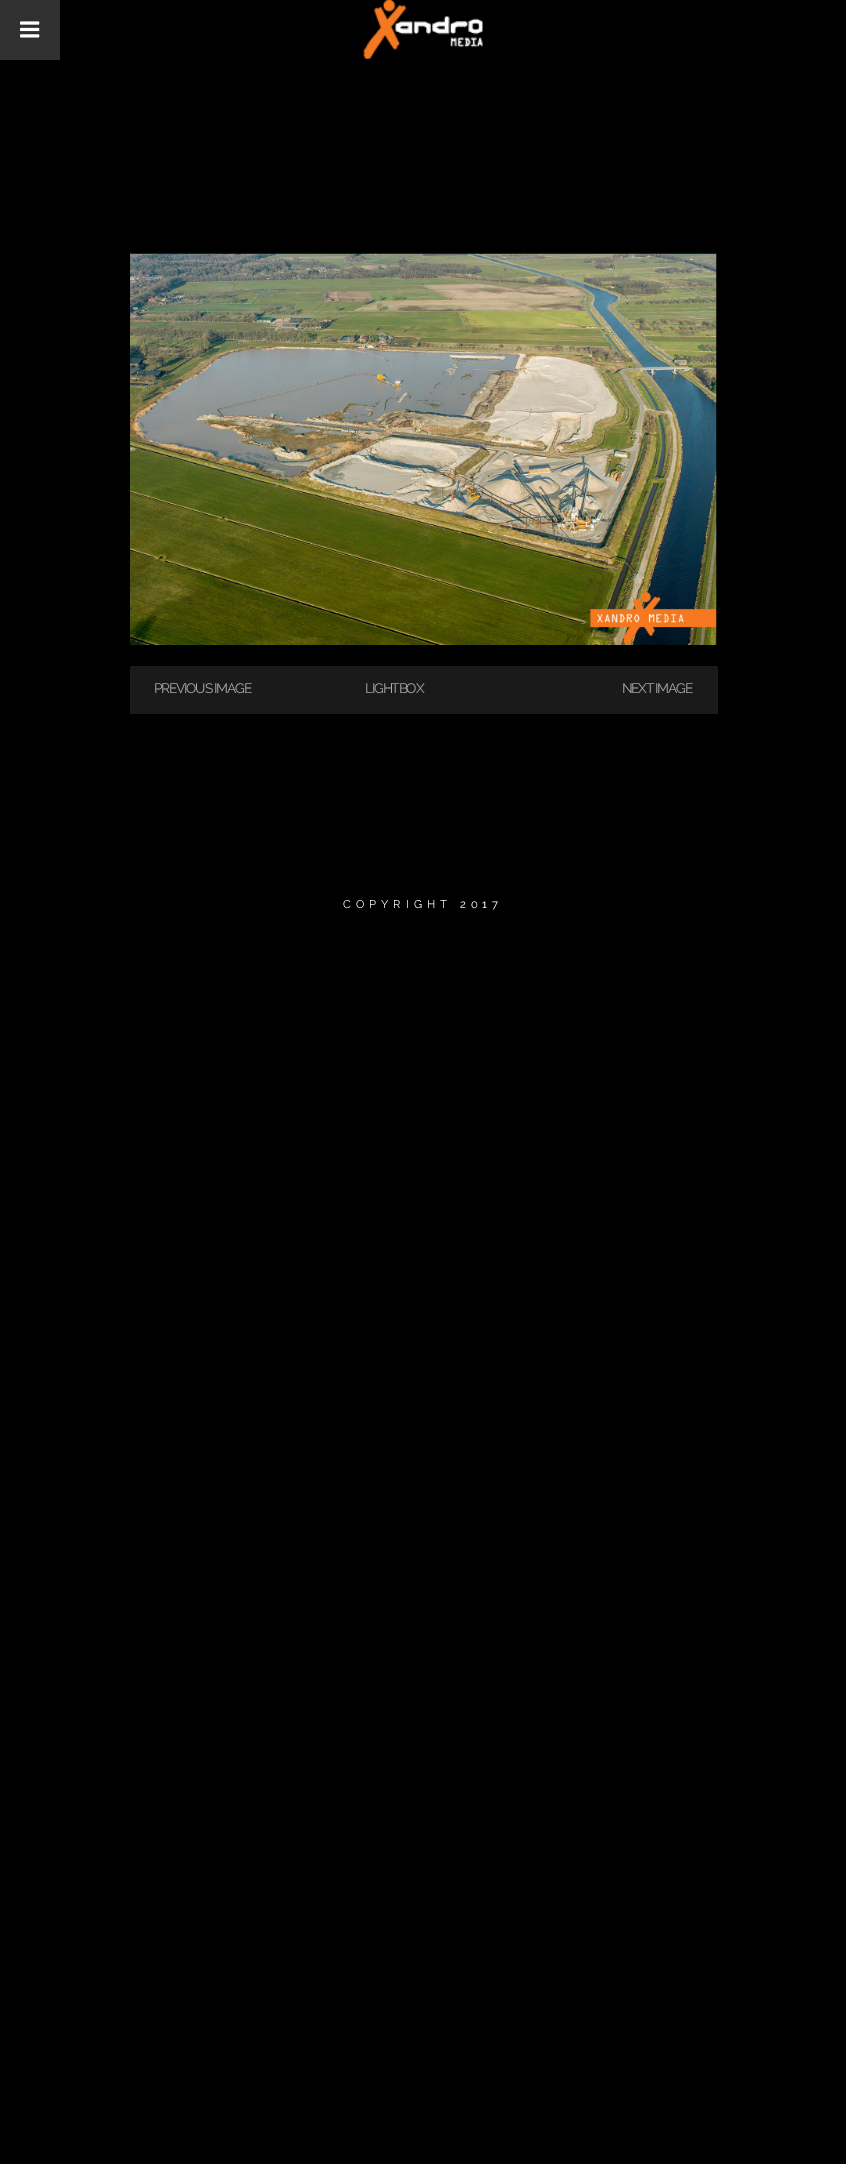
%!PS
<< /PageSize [846 2164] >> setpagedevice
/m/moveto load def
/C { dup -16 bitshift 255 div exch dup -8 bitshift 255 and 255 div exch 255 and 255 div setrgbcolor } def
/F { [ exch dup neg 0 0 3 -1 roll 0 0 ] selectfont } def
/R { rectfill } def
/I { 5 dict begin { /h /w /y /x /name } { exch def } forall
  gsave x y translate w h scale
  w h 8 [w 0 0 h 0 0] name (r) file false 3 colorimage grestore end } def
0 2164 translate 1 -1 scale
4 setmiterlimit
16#000000 C
0 0 846 2164 R
16#303030 C
0 0 60 60 R
(1.rgb) 20 21 20 17 I
(2.rgb) 363 0 120 59 I
(3.rgb) 130 253 587 392 I
16#1A1A1A C
130 666 588 48 R
/Raleway-Regular 13.75 F
16#AAAAAA C
154 693 m -1.25 0 (PREVIOUS IMAGE) ashow
365 693 m -1.25 0 (LIGHTBOX) ashow
622 693 m -1.25 0 (NEXT IMAGE) ashow
/Raleway-Regular 11.25 F
16#FFFFFF C
343 908 m 5 0 (COPYRIGHT 2017) ashow
showpage
